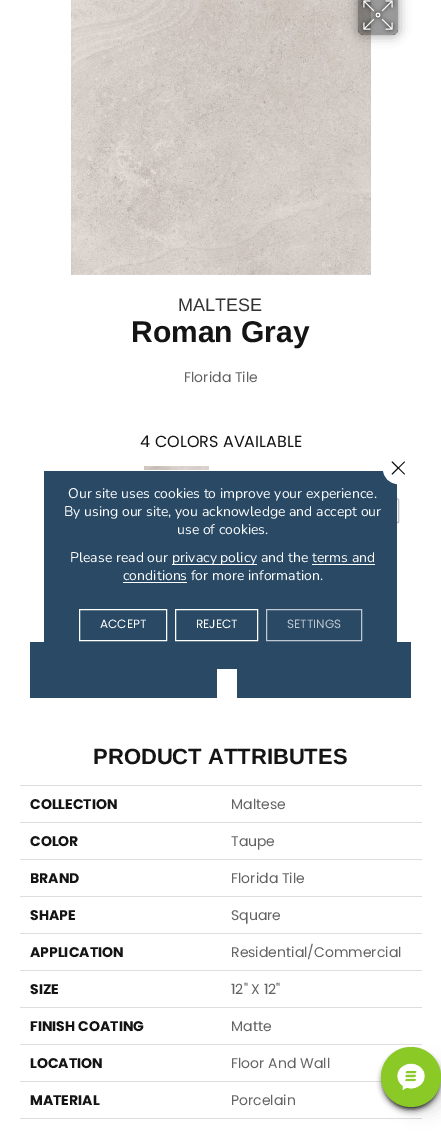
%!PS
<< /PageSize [441 1137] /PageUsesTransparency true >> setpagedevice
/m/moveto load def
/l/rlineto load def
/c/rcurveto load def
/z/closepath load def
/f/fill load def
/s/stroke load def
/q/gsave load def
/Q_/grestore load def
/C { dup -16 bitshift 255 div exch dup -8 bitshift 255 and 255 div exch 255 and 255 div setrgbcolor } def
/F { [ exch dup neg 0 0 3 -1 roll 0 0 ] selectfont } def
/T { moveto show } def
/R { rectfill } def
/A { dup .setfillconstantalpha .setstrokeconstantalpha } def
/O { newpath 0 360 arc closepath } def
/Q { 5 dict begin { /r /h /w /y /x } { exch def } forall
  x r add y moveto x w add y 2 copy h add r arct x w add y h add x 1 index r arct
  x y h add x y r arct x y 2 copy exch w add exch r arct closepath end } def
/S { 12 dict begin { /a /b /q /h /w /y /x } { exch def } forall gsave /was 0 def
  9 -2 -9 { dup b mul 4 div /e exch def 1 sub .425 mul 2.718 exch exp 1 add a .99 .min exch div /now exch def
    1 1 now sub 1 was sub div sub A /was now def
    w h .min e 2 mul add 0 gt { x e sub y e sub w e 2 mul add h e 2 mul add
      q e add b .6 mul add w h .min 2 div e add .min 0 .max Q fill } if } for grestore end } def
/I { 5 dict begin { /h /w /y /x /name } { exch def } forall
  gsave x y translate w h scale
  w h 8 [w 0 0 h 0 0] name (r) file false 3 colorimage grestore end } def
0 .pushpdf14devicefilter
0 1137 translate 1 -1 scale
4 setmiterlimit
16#FFFFFF C
0 0 441 1137 R
(1.rgb) 71 0 300 275 I
q
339 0 m 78 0 l 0 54 l -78 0 l z 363 -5 m 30 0 l 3 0 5 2 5 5 c 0 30 l 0 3 -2 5 -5 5 c -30 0 l -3 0 -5 -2 -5 -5 c 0 -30 l 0 -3 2 -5 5 -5 c z eoclip newpath
16#000000 C
358 -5 40 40 5 6 .41 S
Q_
0.4 A
16#000000 C
358 -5 40 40 5 Q f
1 A
(2.rgb) 359 0 38 34 I
/LiberationSans-Regular 18 F
16#333333 C
(MALTESE) 178 311 T
/LiberationSans-Bold 30 F
16#141414 C
(Roman Gray) 131 342 T
/Poppins-Regular 14 F
16#646363 C
(Florida Tile) 184 382 T
/Poppins-Regular 16 F
16#141414 C
(4) 140 447 T
(COLORS AVAILABLE) 155 447 T
(3.rgb) 144 466 65 4 I
(4.rgb) 397 498 3 26 I
16#294965 C
30 642 187 56 R
237 642 174 56 R
/LiberationSans-Bold 22 F
16#141414 C
(PRODUCT ATTRIBUTES) 93 764 T
/Poppins-Bold 14 F
(COLLECTION) 30 809 T
16#DDDDDD C
20 785 402 1 R
/Poppins-Regular 14 F
16#646363 C
(Maltese) 231 809 T
/Poppins-Bold 14 F
16#141414 C
(COLOR) 30 846 T
16#DDDDDD C
20 822 402 1 R
/Poppins-Regular 14 F
16#646363 C
(Taupe) 231 846 T
/Poppins-Bold 14 F
16#141414 C
(BRAND) 30 883 T
16#DDDDDD C
20 859 402 1 R
/Poppins-Regular 14 F
16#646363 C
(Florida Tile) 231 883 T
/Poppins-Bold 14 F
16#141414 C
(SHAPE) 30 920 T
16#DDDDDD C
20 896 402 1 R
/Poppins-Regular 14 F
16#646363 C
(Square) 231 920 T
/Poppins-Bold 14 F
16#141414 C
(APPLICATION) 30 957 T
16#DDDDDD C
20 933 402 1 R
/Poppins-Regular 14 F
16#646363 C
(Residential/Commercial) 231 957 T
/Poppins-Bold 14 F
16#141414 C
(SIZE) 30 994 T
16#DDDDDD C
20 970 402 1 R
/Poppins-Regular 14 F
16#646363 C
(12" X 12") 231 994 T
/Poppins-Bold 14 F
16#141414 C
(FINISH COATING) 30 1031 T
16#DDDDDD C
20 1007 402 1 R
/Poppins-Regular 14 F
16#646363 C
(Matte) 231 1031 T
/Poppins-Bold 14 F
16#141414 C
(LOCATION) 30 1068 T
16#DDDDDD C
20 1044 402 1 R
/Poppins-Regular 14 F
16#646363 C
(Floor And Wall) 231 1068 T
/Poppins-Bold 14 F
16#141414 C
(MATERIAL) 30 1105 T
16#DDDDDD C
20 1081 362 1 R
/Poppins-Regular 14 F
16#646363 C
(Porcelain) 231 1105 T
16#DDDDDD C
20 1118 402 1 R
16#294965 C
44 471 353 198 R
/Nunito-Regular 14 F
16#FFFFFF C
(Our site uses cookies to improve your experience.) 68 498 T
(By using our site, you acknowledge and accept our) 64 516 T
(use of cookies.) 177 534 T
(Please read our) 70 562 T
172 564 85 1 R
(privacy policy and the terms and) 172 562 T
(conditions for more information.) 123 580 T
312 564 63 1 R
123 582 64 1 R
398 469 14.5 O q f Q_
s
16#000000 C
404.5 461.5 m .5 .5 l -12.5 12.5 l -1 -.5 l z f
391.5 462 m 1 -.5 l 12.5 12.5 l -.5 .5 l z f
16#FFFFFF C
79.5 609.5 87 31 rectstroke
/Poppins-Regular 12 F
(ACCEPT) 100 628 T
175.5 609.5 82 31 rectstroke
(REJECT) 196 628 T
16#BFC8D1 C
266.5 609.5 95 31 rectstroke
(SETTINGS) 287 628 T
16#000000 C
383 1053 56 56 28 3 1 S
394 1060 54 54 27 7.5 .1 S
16#8AC926 C
411 1077 30 O f
(5.rgb) 397 1063 28 28 I
.poppdf14devicefilter showpage
